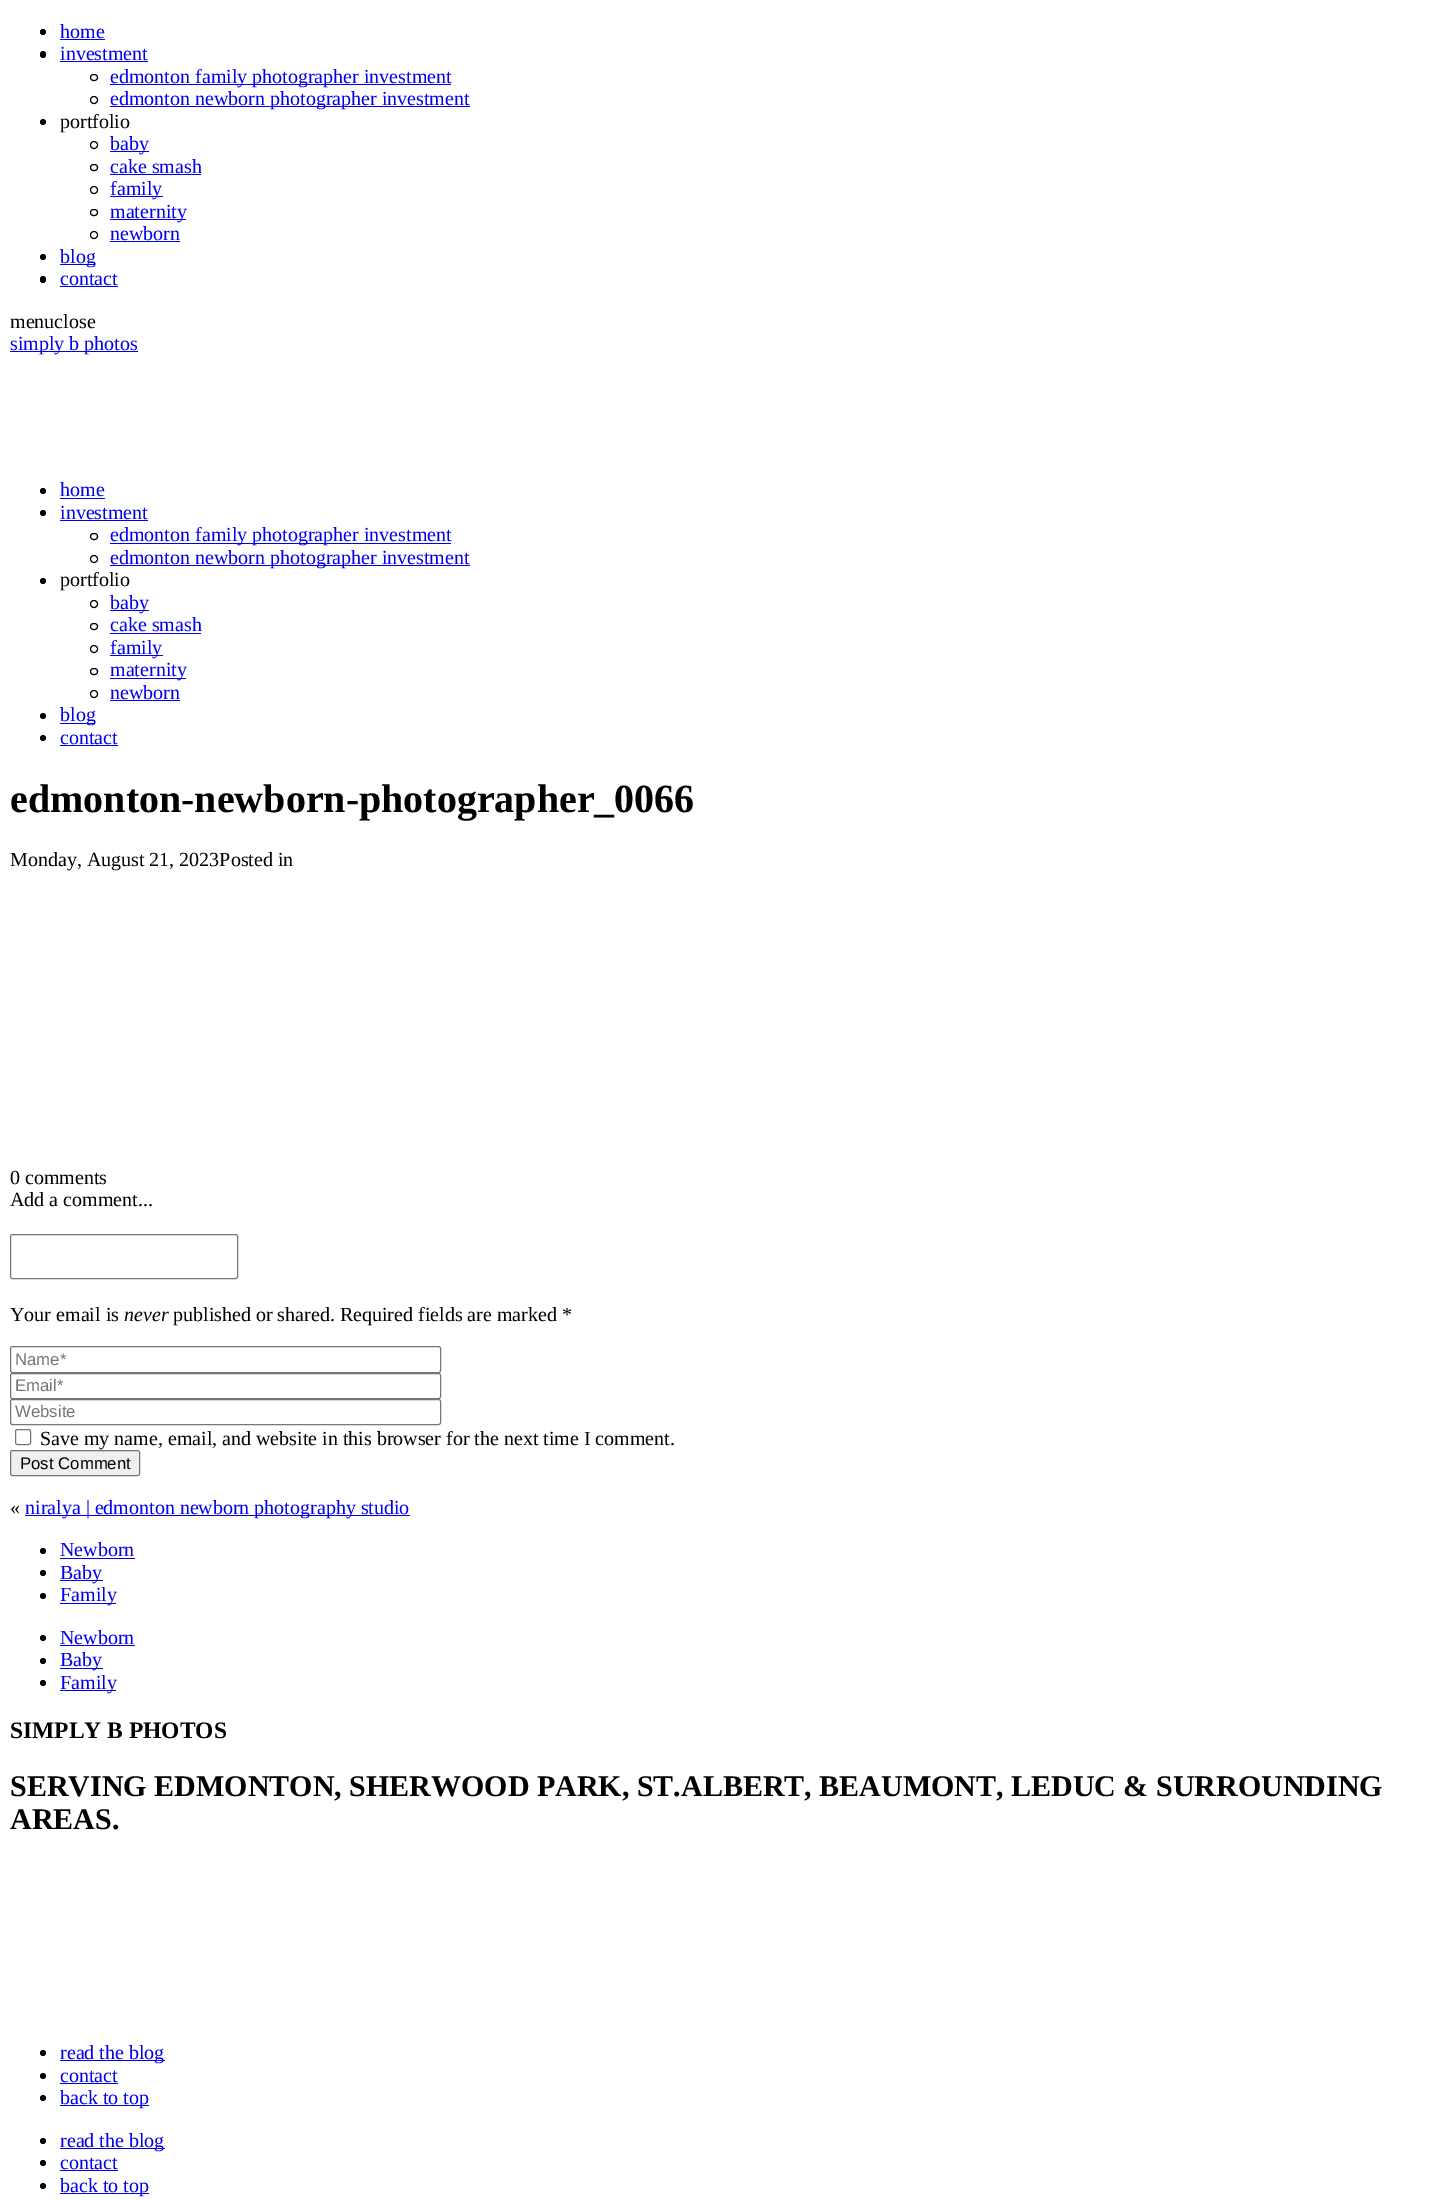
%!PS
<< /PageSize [1447 2200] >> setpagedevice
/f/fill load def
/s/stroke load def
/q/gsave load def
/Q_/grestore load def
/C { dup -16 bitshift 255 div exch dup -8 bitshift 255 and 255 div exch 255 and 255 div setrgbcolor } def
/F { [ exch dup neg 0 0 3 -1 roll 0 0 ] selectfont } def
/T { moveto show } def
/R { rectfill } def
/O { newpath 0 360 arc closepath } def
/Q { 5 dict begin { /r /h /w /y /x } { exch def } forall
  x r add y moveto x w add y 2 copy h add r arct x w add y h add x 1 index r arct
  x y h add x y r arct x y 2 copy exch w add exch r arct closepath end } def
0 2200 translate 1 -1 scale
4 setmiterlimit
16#FFFFFF C
0 0 1447 2200 R
16#000000 C
43 32 3 O f
/LiberationSerif-Regular 20 F
16#0000EE C
(home) 60 38 T
60 39 45 1 R
16#000000 C
40 51 6 7 3 Q f
16#0000EE C
(investment) 60 60 T
60 61 88 1 R
16#000000 C
90.5 74.5 7 6 3 Q s
16#0000EE C
110 84 341 1 R
(edmonton family photographer investment) 110 83 T
16#000000 C
94 100 3.5 O s
16#0000EE C
110 106 360 1 R
(edmonton newborn photographer investment) 110 105 T
16#000000 C
43 122 3 O f
(portfolio) 60 128 T
94 145 3.5 O s
16#0000EE C
110 151 39 1 R
(baby) 110 150 T
16#000000 C
90.5 164.5 7 6 3 Q s
16#0000EE C
(cake smash) 110 173 T
110 174 91 1 R
16#000000 C
94 190 3.5 O s
16#0000EE C
110 196 53 1 R
(family) 110 195 T
16#000000 C
90.5 209.5 7 6 3 Q s
16#0000EE C
110 219 76 1 R
(maternity) 110 218 T
16#000000 C
94 235 3.5 O s
16#0000EE C
(newborn) 110 240 T
110 241 70 1 R
16#000000 C
43 257 3 O f
16#0000EE C
60 264 35 1 R
(blog) 60 263 T
16#000000 C
40 276 6 7 3 Q f
16#0000EE C
(contact) 60 285 T
60 286 58 1 R
16#000000 C
(menuclose) 10 328 T
16#0000EE C
10 351 128 1 R
(simply b photos) 10 350 T
16#000000 C
43 491 3 O f
16#0000EE C
(home) 60 496 T
60 498 45 1 R
16#000000 C
43 513 3 O f
16#0000EE C
(investment) 60 519 T
60 520 88 1 R
16#000000 C
90.5 533.5 7 6 3 Q s
16#0000EE C
110 543 341 1 R
(edmonton family photographer investment) 110 541 T
16#000000 C
94 559 3.5 O s
16#0000EE C
110 565 360 1 R
(edmonton newborn photographer investment) 110 564 T
16#000000 C
43 581 3 O f
(portfolio) 60 586 T
94 604 3.5 O s
16#0000EE C
110 610 39 1 R
(baby) 110 609 T
16#000000 C
90.5 623.5 7 6 3 Q s
16#0000EE C
(cake smash) 110 631 T
110 633 91 1 R
16#000000 C
94 649 3.5 O s
16#0000EE C
110 655 53 1 R
(family) 110 654 T
16#000000 C
90.5 668.5 7 6 3 Q s
16#0000EE C
110 678 76 1 R
(maternity) 110 676 T
16#000000 C
94 694 3.5 O s
16#0000EE C
(newborn) 110 699 T
110 700 70 1 R
16#000000 C
43 716 3 O f
16#0000EE C
60 723 35 1 R
(blog) 60 721 T
16#000000 C
43 738 3 O f
16#0000EE C
(contact) 60 744 T
60 745 58 1 R
/LiberationSerif-Bold 40 F
16#000000 C
(edmonton-newborn-photographer_0066) 10 812 T
/LiberationSerif-Regular 20 F
(Monday, August 21, 2023Posted in) 10 866 T
(0 comments) 10 1184 T
(Add a comment...) 10 1206 T
16#767676 C
10.5 1234.5 227 44 2 Q s
16#000000 C
(Your email is) 10 1321 T
/LiberationSerif-Italic 20 F
(never) 124 1321 T
/LiberationSerif-Regular 20 F
(published or shared. Required fields are marked *) 173 1321 T
16#767676 C
10.5 1346.5 430 26 2 Q s
/LiberationSans-Regular 16.75 F
16#757575 C
(Name*) 15 1365 T
16#767676 C
10.5 1373.5 430 25 2 Q s
16#757575 C
(Email*) 15 1391 T
16#767676 C
10.5 1399.5 430 25 2 Q s
16#757575 C
(Website) 15 1417 T
16#767676 C
15.5 1429.5 15 15 2 Q s
/LiberationSerif-Regular 20 F
16#000000 C
(Save my name, email, and website in this browser for the next time I comment.) 40 1445 T
16#EFEFEF C
10.5 1450.5 129 25 2 Q q f Q_
16#767676 C
s
/LiberationSans-Regular 16.75 F
16#000000 C
(Post Comment) 20 1469 T
/LiberationSerif-Regular 20 F
(«) 10 1514 T
16#0000EE C
25 1515 385 1 R
(niralya | edmonton newborn photography studio) 25 1514 T
16#000000 C
43 1551 3 O f
16#0000EE C
(Newborn) 60 1556 T
60 1558 75 1 R
16#000000 C
43 1573 3 O f
16#0000EE C
60 1580 43 1 R
(Baby) 60 1579 T
16#000000 C
43 1596 3 O f
16#0000EE C
60 1603 56 1 R
(Family) 60 1601 T
16#000000 C
43 1638 3 O f
16#0000EE C
(Newborn) 60 1644 T
60 1645 75 1 R
16#000000 C
43 1661 3 O f
16#0000EE C
60 1668 43 1 R
(Baby) 60 1666 T
16#000000 C
43 1683 3 O f
16#0000EE C
60 1690 56 1 R
(Family) 60 1689 T
/LiberationSerif-Bold 23.5 F
16#000000 C
(SIMPLY B PHOTOS) 10 1738 T
/LiberationSerif-Bold 30 F
(SERVING EDMONTON, SHERWOOD PARK, ST.ALBERT, BEAUMONT, LEDUC & SURROUNDING) 10 1796 T
(AREAS.) 10 1829 T
43 2053 3 O f
16#0000EE C
60 2060 105 1 R
/LiberationSerif-Regular 20 F
(read the blog) 60 2059 T
16#000000 C
43 2076 3 O f
16#0000EE C
(contact) 60 2082 T
60 2083 58 1 R
16#000000 C
43 2098 3 O f
16#0000EE C
60 2105 89 1 R
(back to top) 60 2104 T
16#000000 C
43 2141 3 O f
16#0000EE C
60 2148 105 1 R
(read the blog) 60 2147 T
16#000000 C
43 2163 3 O f
16#0000EE C
(contact) 60 2169 T
60 2170 58 1 R
16#000000 C
43 2186 3 O f
16#0000EE C
60 2193 89 1 R
(back to top) 60 2192 T
showpage
